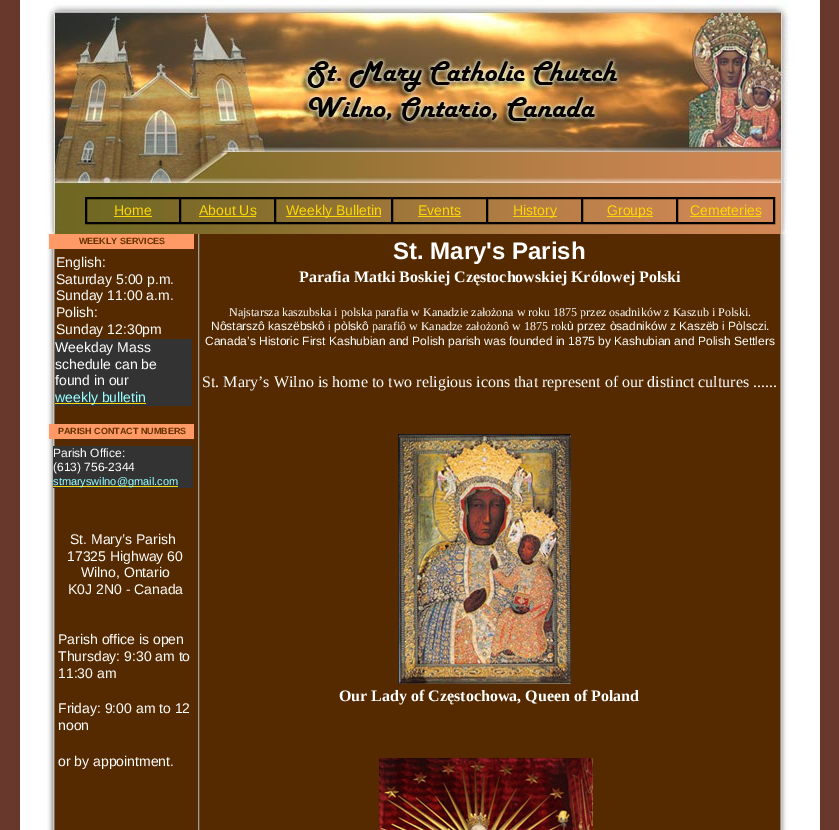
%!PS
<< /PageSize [839 830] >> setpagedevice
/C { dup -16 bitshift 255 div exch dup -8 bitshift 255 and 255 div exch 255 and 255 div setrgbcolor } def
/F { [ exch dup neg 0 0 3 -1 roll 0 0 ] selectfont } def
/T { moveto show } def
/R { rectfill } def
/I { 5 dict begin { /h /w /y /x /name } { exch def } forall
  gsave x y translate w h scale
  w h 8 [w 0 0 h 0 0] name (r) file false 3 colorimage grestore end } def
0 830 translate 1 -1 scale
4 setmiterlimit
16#68382C C
0 0 839 830 R
(1.rgb) 20 0 800 234 I
16#010000 C
85.5 197.5 689 26 rectstroke
86.5 198.5 93 24 rectstroke
/LiberationSans-Regular 14 F
16#FCD705 C
(Home) 114 215 T
114 216 38 1 R
16#010000 C
180.5 198.5 94 24 rectstroke
16#FCD705 C
(About Us) 199 215 T
199 216 57 1 R
16#010000 C
275.5 198.5 116 24 rectstroke
16#FCD705 C
286 216 95 1 R
(Weekly Bulletin) 286 215 T
16#010000 C
392.5 198.5 94 24 rectstroke
16#FCD705 C
(Events) 418 215 T
418 216 43 1 R
16#010000 C
487.5 198.5 94 24 rectstroke
16#FCD705 C
513 216 44 1 R
(History) 513 215 T
16#010000 C
582.5 198.5 94 24 rectstroke
16#FCD705 C
607 216 46 1 R
(Groups) 607 215 T
16#010000 C
677.5 198.5 96 24 rectstroke
16#FCD705 C
(Cemeteries) 690 215 T
690 216 71 1 R
16#FFFFFF C
20 234 27 596 R
(2.rgb) 47 234 154 596 I
16#FF9966 C
49 234 145 15 R
/LiberationSans-Bold 9 F
16#663300 C
(WEEKLY SERVICES) 79 244 T
/LiberationSans-Regular 14 F
16#FFFFFF C
(English:) 56 267 T
(Saturday 5:00 p.m.) 56 284 T
(Sunday 11:00 a.m.) 56 300 T
(Polish:) 56 317 T
(Sunday 12:30pm) 56 334 T
16#333333 C
55 339 137 67 R
16#FFFFFF C
(Weekday Mass) 55 352 T
(schedule can be) 55 369 T
(found in our) 55 385 T
16#FCD705 C
55 403 91 1 R
16#99FFFF C
(weekly bulletin) 55 402 T
16#FF9966 C
49 424 145 15 R
/LiberationSans-Bold 9 F
16#663300 C
(PARISH CONTACT NUMBERS) 58 434 T
16#333333 C
53 446 140 42 R
/LiberationSans-Regular 12 F
16#FFFFFF C
(Parish Office:) 53 457 T
(\(613\) 756-2344) 53 471 T
16#FCD705 C
53 486 125 1 R
/LiberationSans-Regular 11 F
16#99FFFF C
(stmaryswilno@gmail.com) 53 485 T
/LiberationSans-Regular 14 F
16#FFFFFF C
(St. Mary’s Parish) 70 544 T
(17325 Highway 60) 67 561 T
(Wilno, Ontario) 81 577 T
(K0J 2N0 - Canada) 68 594 T
(Parish office is open) 58 644 T
(Thursday: 9:30 am to) 58 661 T
(11:30 am) 58 678 T
(Friday: 9:00 am to 12) 58 713 T
(noon) 58 730 T
(or by appointment.) 58 766 T
(3.rgb) 201 234 619 596 I
/LiberationSans-Bold 24 F
(St. Mary's Parish) 393 259 T
/LiberationSerif-Bold 16 F
(Parafia Matki Boskiej Częstochowskiej Królowej Polski) 299 282 T
/LiberationSerif-Regular 12 F
(Najstarsza kaszubska i polska parafia w Kanadzie założona w roku 1875 przez osadników z Kaszub i Polski.) 229 316 T
/LiberationSans-Regular 12 F
(Nôstarszô kaszëbskô i pòlskô) 211 330 T
/LiberationSerif-Regular 12 F
(parafiô w Kanadze założonô w 1875 rok) 372 330 T
/LiberationSans-Regular 12 F
(ù przez òsadników z Kaszëb i Pòlsczi.) 567 330 T
(Canada’s Historic First Kashubian and Polish parish was founded in 1875 by Kashubian and Polish Settlers) 205 345 T
/LiberationSerif-Regular 16 F
(St. Mary’s Wilno is home to two religious icons that represent of our distinct cultures ......) 202 387 T
(4.rgb) 398 434 173 250 I
/LiberationSerif-Bold 16 F
(Our Lady of Częstochowa, Queen of Poland) 339 701 T
(5.rgb) 379 758 214 72 I
showpage
